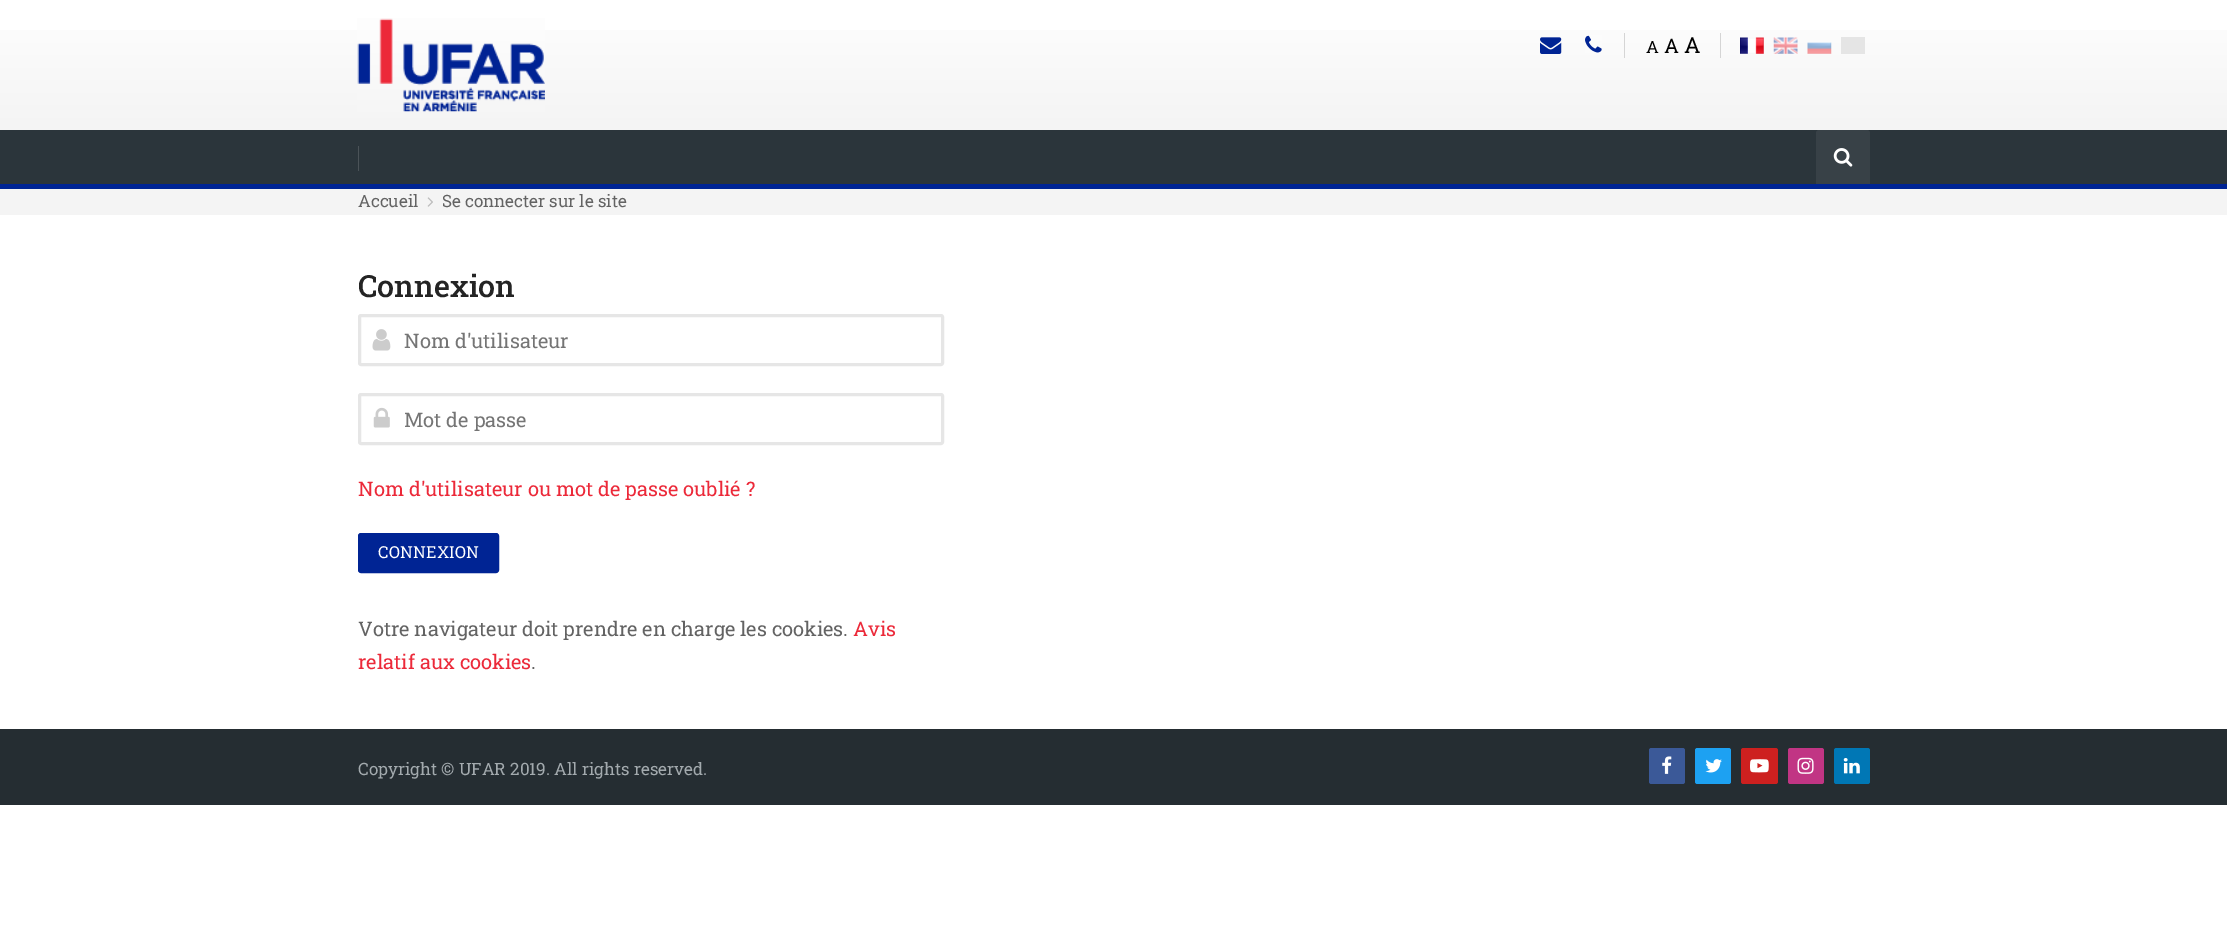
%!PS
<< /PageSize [2227 926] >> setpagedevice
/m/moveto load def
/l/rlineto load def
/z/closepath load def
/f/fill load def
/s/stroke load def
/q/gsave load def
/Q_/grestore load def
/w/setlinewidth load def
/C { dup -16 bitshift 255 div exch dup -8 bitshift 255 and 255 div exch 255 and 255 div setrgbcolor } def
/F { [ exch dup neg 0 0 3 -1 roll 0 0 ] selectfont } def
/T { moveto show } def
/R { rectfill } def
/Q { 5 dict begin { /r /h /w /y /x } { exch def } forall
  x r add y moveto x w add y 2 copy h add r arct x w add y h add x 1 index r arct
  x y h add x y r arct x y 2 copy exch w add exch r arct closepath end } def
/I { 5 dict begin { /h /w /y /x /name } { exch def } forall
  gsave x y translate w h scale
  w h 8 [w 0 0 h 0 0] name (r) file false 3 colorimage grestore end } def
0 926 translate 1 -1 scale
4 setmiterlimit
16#FFFFFF C
0 0 2227 926 R
q 0 30 m 2227 0 l 0 100 l -2227 0 l z clip newpath
<< /ShadingType 2 /ColorSpace /DeviceRGB /Coords [1114 0 1114 130] /Extend [true true] /Function << /FunctionType 2 /Domain [0 1] /C0 [1 1 1] /C1 [.957 .957 .957] /N 1 >> >> shfill Q_
(1.rgb) 357 18 188 94 I
(2.rgb) 1540 37 22 17 I
(3.rgb) 1585 35 17 18 I
16#D5D5D5 C
1624 33 1 25 R
/RobotoSlab-Regular 17 F
16#000000 C
(A) 1646 53 T
/RobotoSlab-Regular 20 F
(A) 1664 53 T
/RobotoSlab-Regular 22 F
(A) 1684 53 T
16#D5D5D5 C
1720 33 1 25 R
(4.rgb) 1740 37 24 17 I
(5.rgb) 1773 37 25 17 I
(6.rgb) 1807 42 25 12 I
16#E5E5E5 C
1841 37 24 17 R
16#2B353B C
0 130 2227 54 R
16#4B5358 C
358 146 1 25 R
16#384147 C
1816 130 54 59 3 Q f
(7.rgb) 1833 148 20 19 I
16#002494 C
0 184 2227 5 R
16#F4F4F4 C
0 189 2227 26 R
/RobotoSlab-Regular 17 F
16#636363 C
(Accueil) 358 207 T
(8.rgb) 427 197 6 10 I
(Se connecter sur le site) 442 207 T
/RobotoSlab-Medium 30.5 F
16#242424 C
(Connexion) 358 297 T
16#E6E6E6 C
3 w
359.5 315.5 583 49 1.5 Q s
(9.rgb) 372 329 19 22 I
/RobotoSlab-Regular 20 F
16#757575 C
(Nom d'utilisateur) 404 348 T
16#E6E6E6 C
359.5 394.5 583 49 1.5 Q s
(10.rgb) 373 407 17 21 I
16#757575 C
(Mot de passe) 404 427 T
16#EC2939 C
(Nom d'utilisateur ou mot de passe oublié ?) 358 496 T
16#002494 C
358.5 533.5 140 39 2.5 Q q f Q_
1 w
s
/RobotoSlab-Regular 16.5 F
16#FFFFFF C
378 558 m .25 0 (CONNEXION) ashow
/RobotoSlab-Regular 20 F
16#636363 C
(Votre navigateur doit prendre en charge les cookies.) 358 636 T
16#EC2939 C
(Avis) 853 636 T
(relatif aux cookies) 358 669 T
16#636363 C
(.) 531 669 T
16#252D32 C
0 729 2227 76 R
/RobotoSlab-Regular 17 F
16#A3AAAE C
(Copyright © UFAR 2019. All rights reserved.) 358 775 T
16#3B5998 C
1649 748 36 36 2.5 Q f
(11.rgb) 1662 756 10 18 I
16#1DA1F2 C
1695 748 36 36 2.5 Q f
(12.rgb) 1705 759 17 14 I
16#CD201F C
1741 748 37 36 2.5 Q f
(13.rgb) 1750 759 19 14 I
16#C13584 C
1788 748 36 36 2.5 Q f
(14.rgb) 1797 757 17 17 I
16#0077B5 C
1834 748 36 36 2.5 Q f
(15.rgb) 1843 758 17 16 I
showpage
